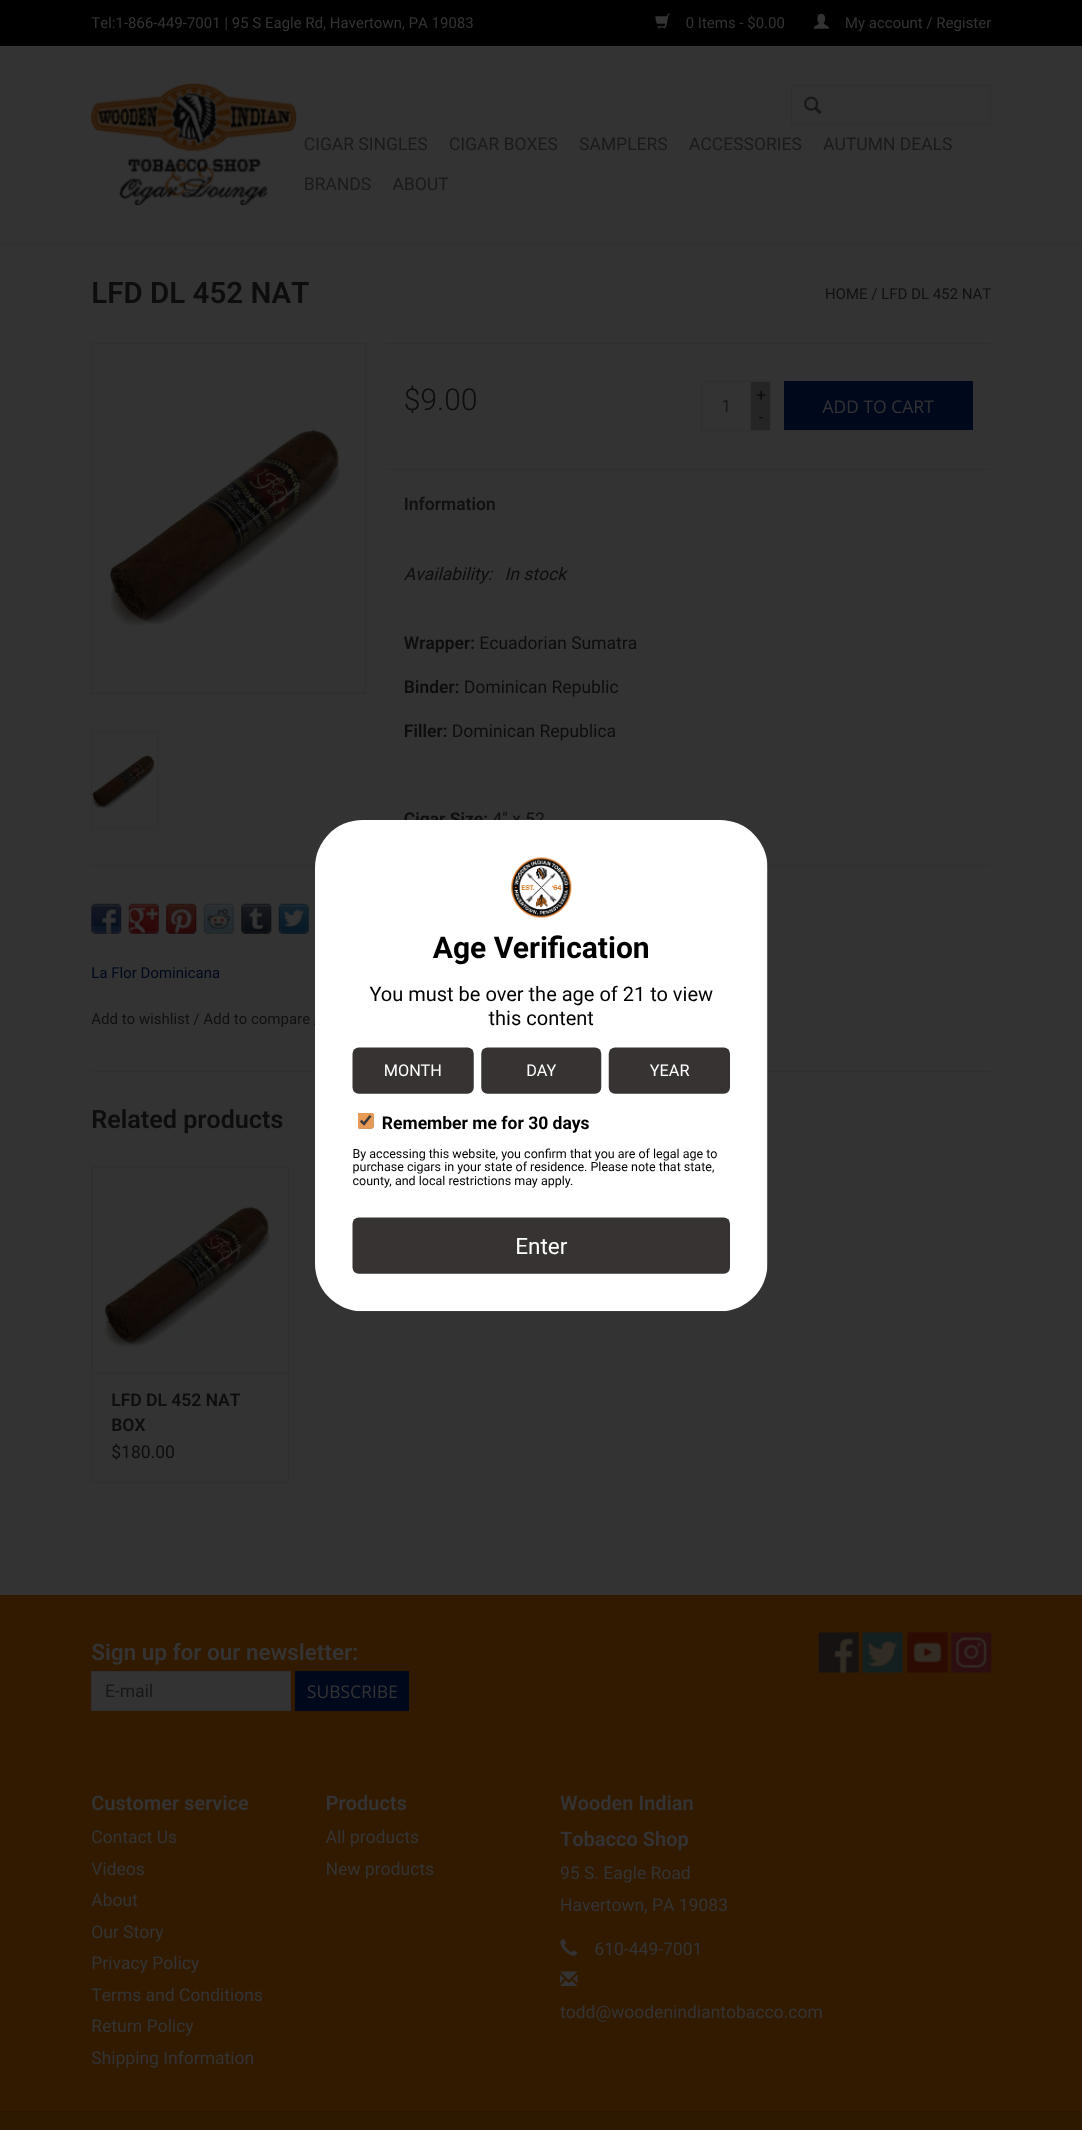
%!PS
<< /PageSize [1082 2130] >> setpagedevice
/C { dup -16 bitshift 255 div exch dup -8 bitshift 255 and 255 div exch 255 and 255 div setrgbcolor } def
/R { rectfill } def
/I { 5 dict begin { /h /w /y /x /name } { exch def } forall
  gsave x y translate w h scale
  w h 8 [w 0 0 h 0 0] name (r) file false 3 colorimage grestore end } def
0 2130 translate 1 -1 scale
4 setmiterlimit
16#FFFFFF C
0 0 1082 2130 R
16#000000 C
0 0 1082 46 R
(1.rgb) 655 13 15 16 I
(2.rgb) 813 13 16 16 I
(3.rgb) 91 83 206 122 I
16#EAEAEA C
791.5 85.5 199 39 rectstroke
(4.rgb) 804 96 18 18 I
91.5 343.5 274 350 rectstroke
(5.rgb) 93 344 272 348 I
91.5 731.5 66 96 rectstroke
(6.rgb) 92 733 64 93 I
701.5 381.5 49 49 rectstroke
(7.rgb) 91 903 31 31 I
(8.rgb) 128 903 31 31 I
(9.rgb) 166 903 31 31 I
(10.rgb) 203 903 31 31 I
(11.rgb) 241 903 31 31 I
(12.rgb) 278 903 31 31 I
(13.rgb) 93 1168 195 205 I
91.5 1373.5 197 109 rectstroke
(14.rgb) 818 1632 41 41 I
(15.rgb) 862 1632 41 41 I
(16.rgb) 907 1632 41 41 I
(17.rgb) 951 1632 41 41 I
16#E9E9E9 C
91.5 1671.5 199 39 rectstroke
(18.rgb) 560 1939 18 17 I
(19.rgb) 560 1971 18 16 I
(20.rgb) 0 13 1082 2117 I
showpage
